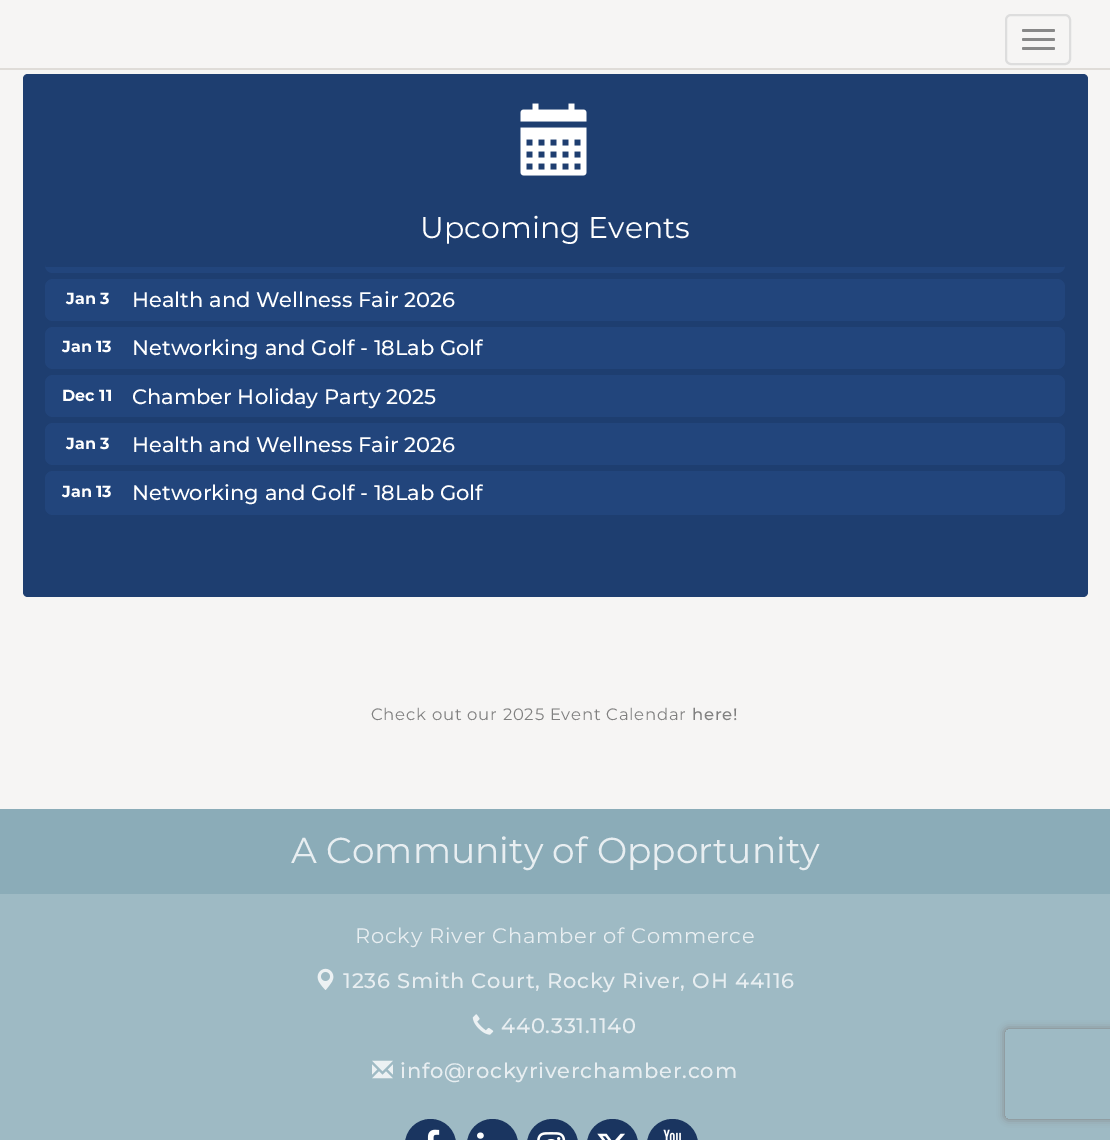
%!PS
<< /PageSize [1110 1140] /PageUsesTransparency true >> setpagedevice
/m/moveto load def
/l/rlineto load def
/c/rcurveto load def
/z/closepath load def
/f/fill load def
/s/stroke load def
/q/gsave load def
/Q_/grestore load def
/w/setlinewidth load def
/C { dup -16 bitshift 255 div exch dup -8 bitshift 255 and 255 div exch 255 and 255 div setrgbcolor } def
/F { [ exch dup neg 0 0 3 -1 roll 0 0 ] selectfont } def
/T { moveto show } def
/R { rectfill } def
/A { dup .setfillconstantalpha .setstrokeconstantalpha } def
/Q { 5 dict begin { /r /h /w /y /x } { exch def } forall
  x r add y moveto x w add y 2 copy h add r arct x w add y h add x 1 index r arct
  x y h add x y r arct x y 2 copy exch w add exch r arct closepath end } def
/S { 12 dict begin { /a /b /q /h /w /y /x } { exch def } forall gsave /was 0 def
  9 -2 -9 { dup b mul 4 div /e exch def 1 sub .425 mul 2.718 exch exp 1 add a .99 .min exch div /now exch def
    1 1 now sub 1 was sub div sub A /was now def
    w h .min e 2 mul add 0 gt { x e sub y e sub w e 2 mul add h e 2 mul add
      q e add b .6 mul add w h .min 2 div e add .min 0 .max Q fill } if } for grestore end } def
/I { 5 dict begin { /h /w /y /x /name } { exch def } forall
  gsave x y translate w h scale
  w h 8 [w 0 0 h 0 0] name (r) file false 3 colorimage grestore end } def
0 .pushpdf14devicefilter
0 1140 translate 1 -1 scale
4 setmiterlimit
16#F6F5F4 C
0 0 1110 1140 R
16#DFDCD8 C
0 68 1110 2 R
16#DDDDDD C
2 w
1006 15 64 49 5 Q s
16#888888 C
1022 29 33 3 1.5 Q f
1022 38 33 3 1.5 Q f
1022 47 33 3 1.5 Q f
16#1E3E70 C
28 74 m 1055 0 l 3 0 5 2 5 5 c 0 166 l -1065 0 l 0 -166 l 0 -3 2 -5 5 -5 c z f
(1.rgb) 520 103 67 73 I
/Montserrat-Regular 30 F
16#FFFFFF C
(Upcoming Events) 420 238 T
16#1E3E70 C
23 245 m 1065 0 l 0 347 l 0 3 -2 5 -5 5 c -1055 0 l -3 0 -5 -2 -5 -5 c z f
16#22457C C
45 267 m 1020 0 l 0 -2 l 0 4.5 -3.5 8 -8 8 c -1004 0 l -4.5 0 -8 -3.5 -8 -8 c z f
45 279 1020 42 8 Q f
/Montserrat-Bold 16 F
16#FFFFFF C
(Jan 3) 66 304 T
/Montserrat-Medium 21 F
(Health and Wellness Fair 2026) 132 307 T
16#22457C C
45 327 1020 42 8 Q f
/Montserrat-Bold 16 F
16#FFFFFF C
(Jan 13) 62 352 T
/Montserrat-Medium 21 F
(Networking and Golf - 18Lab Golf) 132 355 T
16#22457C C
45 375 1020 42 8 Q f
/Montserrat-Bold 16 F
16#FFFFFF C
(Dec 11) 62 401 T
/Montserrat-Medium 21 F
(Chamber Holiday Party 2025) 132 404 T
16#22457C C
45 423 1020 42 8 Q f
/Montserrat-Bold 16 F
16#FFFFFF C
(Jan 3) 66 449 T
/Montserrat-Medium 21 F
(Health and Wellness Fair 2026) 132 452 T
16#22457C C
45 471 1020 44 8 Q f
/Montserrat-Bold 16 F
16#FFFFFF C
(Jan 13) 62 497 T
/Montserrat-Medium 21 F
(Networking and Golf - 18Lab Golf) 132 500 T
/Montserrat-Regular 16.5 F
16#808080 C
371 720 m .75 0 (Check out our 2025 Event Calendar) ashow
/Montserrat-Medium 16.5 F
692 720 m .75 0 (here!) ashow
16#8BACB8 C
0 809 1110 85 R
/Montserrat-Regular 36 F
16#E8EEF1 C
(A Community of Opportunity) 291 863 T
16#9EBAC4 C
0 894 1110 246 R
/Montserrat-Regular 21 F
16#E8EEF1 C
355 943 m .75 0 (Rocky River Chamber of Commerce) ashow
(2.rgb) 317 968 17 22 I
/Montserrat-Medium 21 F
343 988 m .75 0 (1236 Smith Court, Rocky River, OH 44116) ashow
(3.rgb) 472 1014 22 21 I
501 1033 m .75 0 (440.331.1140) ashow
(4.rgb) 372 1060 21 19 I
400 1078 m .75 0 (info@rockyriverchamber.com) ashow
16#1A3560 C
406 1120 49 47 24.5 Q q f Q_
s
(5.rgb) 427 1129 13 11 I
468 1120 49 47 24.5 Q q f Q_
s
(6.rgb) 477 1132 7 7 I
528 1120 49 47 24.5 Q q f Q_
s
(7.rgb) 537 1132 29 8 I
588 1120 49 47 24.5 Q q f Q_
s
(8.rgb) 597 1133 28 7 I
648 1120 49 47 24.5 Q q f Q_
s
(9.rgb) 663 1129 18 11 I
q
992 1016 m 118 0 l 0 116 l -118 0 l z 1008 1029 m 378 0 l 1.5 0 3 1.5 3 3 c 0 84 l 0 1.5 -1.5 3 -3 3 c -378 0 l -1.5 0 -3 -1.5 -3 -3 c 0 -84 l 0 -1.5 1.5 -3 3 -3 c z eoclip newpath
16#808080 C
1005 1029 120 90 3 4 1 S
Q_
.poppdf14devicefilter showpage
